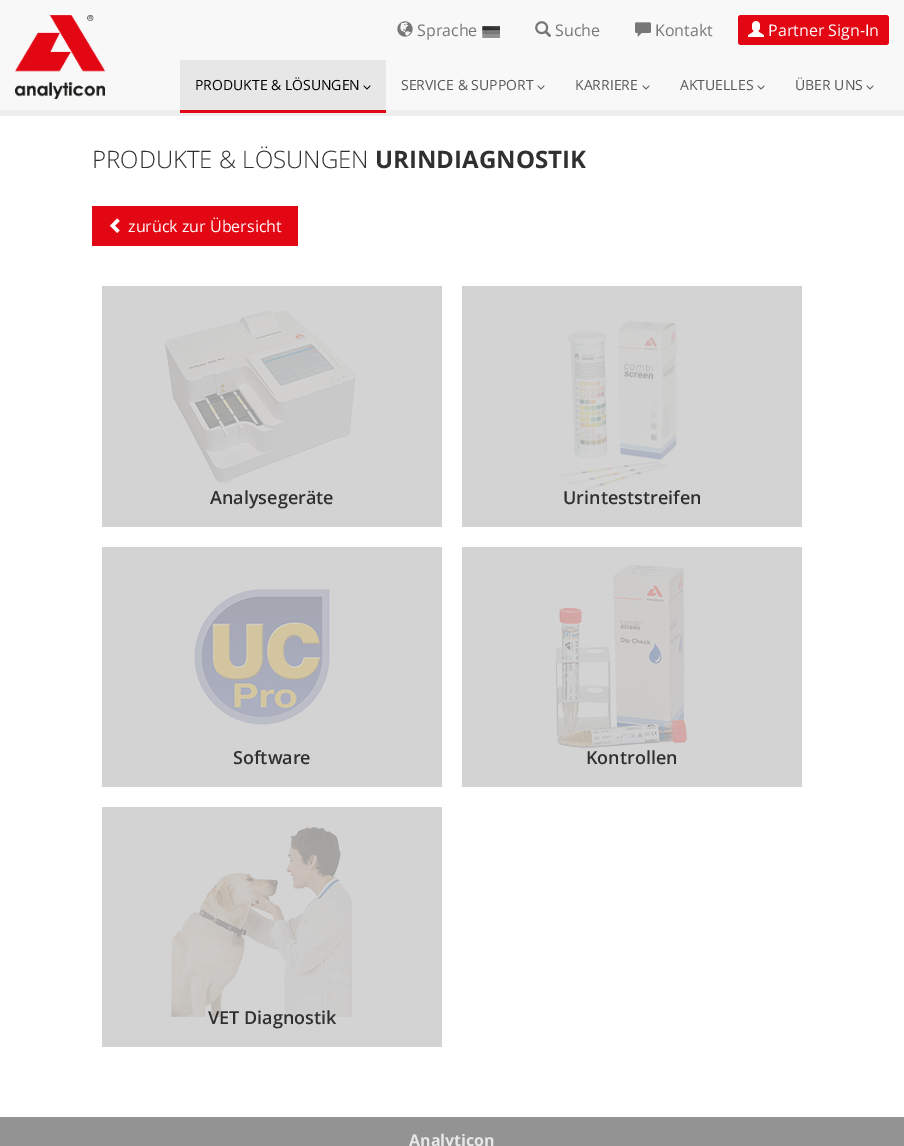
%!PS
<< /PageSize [904 1146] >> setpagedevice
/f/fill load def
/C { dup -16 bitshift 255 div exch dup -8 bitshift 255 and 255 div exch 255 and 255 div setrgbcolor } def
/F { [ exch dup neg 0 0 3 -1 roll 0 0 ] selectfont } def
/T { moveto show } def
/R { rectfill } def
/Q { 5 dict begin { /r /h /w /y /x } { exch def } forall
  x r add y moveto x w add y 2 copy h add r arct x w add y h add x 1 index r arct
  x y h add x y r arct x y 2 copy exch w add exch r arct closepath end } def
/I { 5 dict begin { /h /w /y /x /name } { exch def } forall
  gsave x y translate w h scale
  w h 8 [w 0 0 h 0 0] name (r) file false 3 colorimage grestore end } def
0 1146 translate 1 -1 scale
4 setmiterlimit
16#FFFFFF C
0 0 904 1146 R
16#D3D3D3 C
102 807 340 240 R
462 547 340 240 R
102 547 340 240 R
462 286 340 241 R
102 286 340 241 R
16#F8F8F8 C
0 0 904 110 R
16#EEEEEE C
0 110 904 6 R
(1.rgb) 15 15 90 84 I
(2.rgb) 397 21 16 16 I
/OpenSans-Regular 16 F
16#777777 C
(Sprache) 417 36 T
(3.rgb) 482 26 18 12 I
(4.rgb) 535 21 17 16 I
(Suche) 555 36 T
(5.rgb) 635 22 16 15 I
(Kontakt) 655 36 T
16#E30613 C
738 15 151 30 3 Q f
(6.rgb) 748 21 16 16 I
16#FFFFFF C
(Partner Sign-In) 768 36 T
16#E30613 C
180 110 206 3 R
16#E7E7E7 C
180 60 206 50 R
/OpenSans-Regular 14 F
16#000000 C
(PRODUKTE & LÖSUNGEN) 195 90 T
(7.rgb) 363 85 8 5 I
16#595959 C
(SERVICE & SUPPORT) 401 90 T
(8.rgb) 537 85 8 5 I
(KARRIERE) 575 90 T
(8.rgb) 642 85 8 5 I
(AKTUELLES) 680 90 T
(8.rgb) 757 85 8 5 I
(ÜBER UNS) 795 90 T
(8.rgb) 866 85 8 5 I
/OpenSans-Light 24 F
16#303030 C
(PRODUKTE & LÖSUNGEN) 92 168 T
/OpenSans-Bold 24 F
(URINDIAGNOSTIK) 375 168 T
16#E30613 C
92 206 206 40 R
(9.rgb) 109 218 11 15 I
/OpenSans-Regular 16 F
16#FFFFFF C
(zurück zur Übersicht) 128 232 T
(10.rgb) 164 310 192 173 I
/OpenSans-SemiBold 18 F
16#303030 C
(Analysegeräte) 210 504 T
(11.rgb) 561 321 116 171 I
(Urinteststreifen) 563 504 T
(12.rgb) 194 589 136 136 I
(Software) 233 764 T
(13.rgb) 555 564 133 184 I
(Kontrollen) 586 764 T
(14.rgb) 171 826 182 191 I
(VET Diagnostik) 208 1024 T
16#939393 C
0 1117 904 29 R
/OpenSans-Bold 16 F
16#E8E8E8 C
(Analyticon) 409 1146 T
showpage
